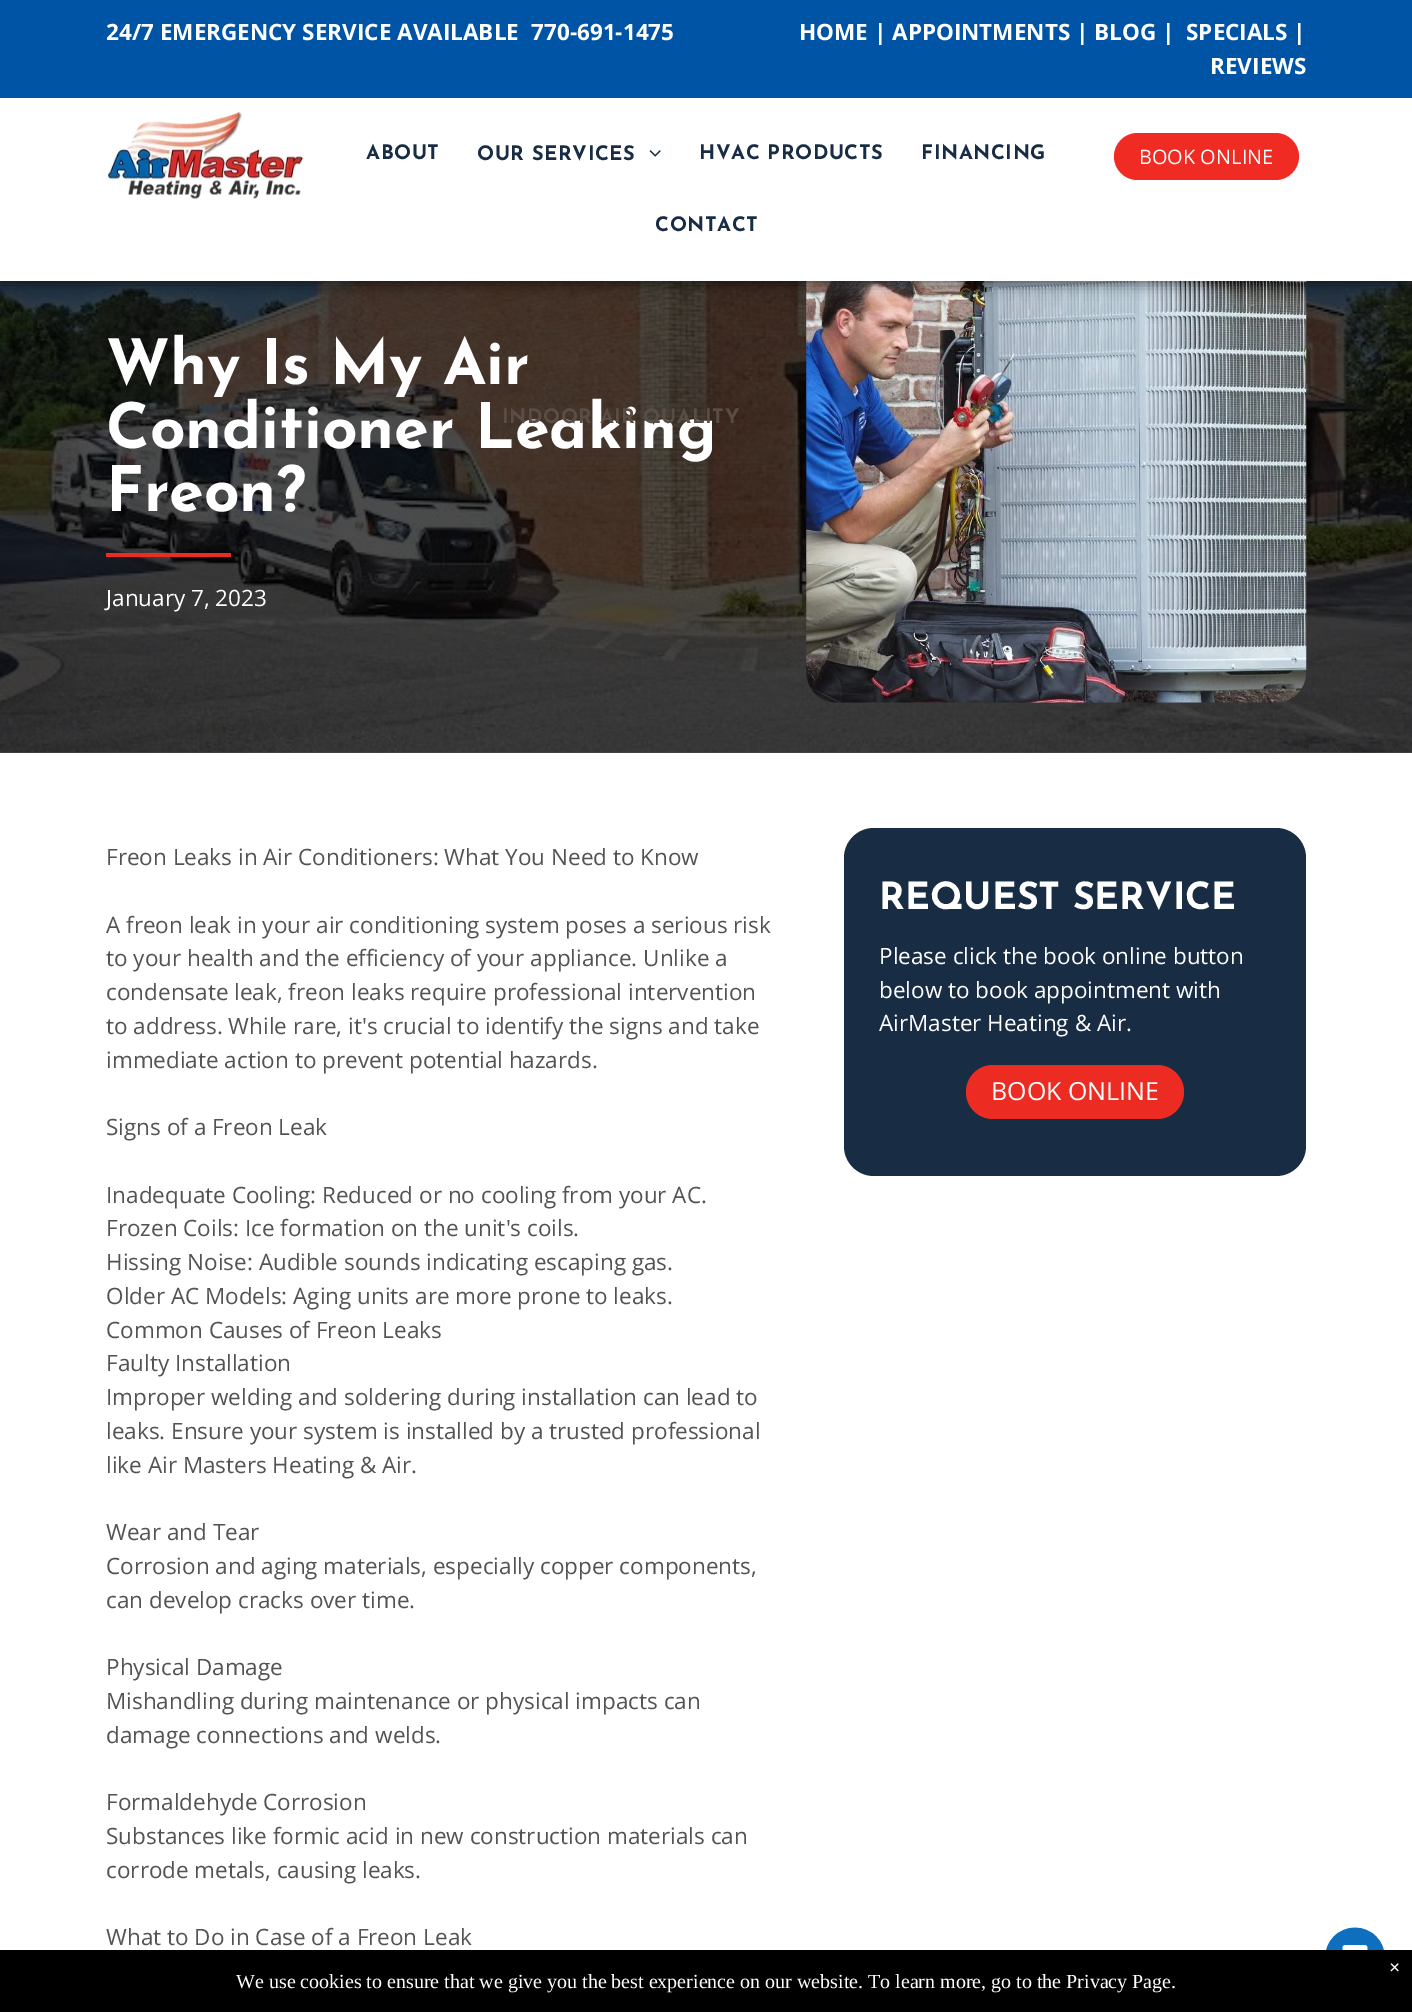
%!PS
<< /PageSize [1412 2012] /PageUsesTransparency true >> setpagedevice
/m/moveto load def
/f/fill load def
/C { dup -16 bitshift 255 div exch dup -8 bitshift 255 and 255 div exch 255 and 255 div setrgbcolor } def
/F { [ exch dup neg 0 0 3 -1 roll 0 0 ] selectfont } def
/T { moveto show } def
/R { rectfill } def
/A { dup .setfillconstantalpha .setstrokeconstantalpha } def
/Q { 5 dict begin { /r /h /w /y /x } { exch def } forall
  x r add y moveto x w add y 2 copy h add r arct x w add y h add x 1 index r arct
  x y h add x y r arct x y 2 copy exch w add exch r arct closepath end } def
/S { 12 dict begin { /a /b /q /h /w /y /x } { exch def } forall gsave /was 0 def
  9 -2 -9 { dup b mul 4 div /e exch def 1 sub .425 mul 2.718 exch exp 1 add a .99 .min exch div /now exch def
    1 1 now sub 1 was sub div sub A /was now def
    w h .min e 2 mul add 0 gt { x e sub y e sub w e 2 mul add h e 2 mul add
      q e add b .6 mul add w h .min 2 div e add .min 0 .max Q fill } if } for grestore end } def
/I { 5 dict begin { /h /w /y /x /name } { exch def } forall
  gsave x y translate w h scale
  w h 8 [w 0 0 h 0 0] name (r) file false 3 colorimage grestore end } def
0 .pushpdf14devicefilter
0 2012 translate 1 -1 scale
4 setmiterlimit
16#FFFFFF C
0 0 1412 2012 R
16#4D4D4D C
0 752 1412 1 R
(3.rgb) 0 281 1412 472 I
(4.rgb) 806 281 501 422 I
16#000000 C
0 4 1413 281 0 7 .5 S
16#FFFFFF C
0 98 1412 183 R
16#0054A6 C
0 0 1412 98 R
/OpenSans-Bold 22.5 F
16#FFFFFF C
(24/7 EMERGENCY SERVICE AVAILABLE) 106 40 T
(770-691-1475) 531 40 T
(HOME | APPOINTMENTS | BLOG |  SPECIALS |) 799 40 T
(REVIEWS) 1210 74 T
(1.rgb) 106 111 199 88 I
/JosefinSans-Bold 20 F
16#182D43 C
366 159 m .6 0 (ABOUT) ashow
477 160 m .6 0 (OUR SERVICES) ashow
(2.rgb) 649 150 12 7 I
/JosefinSans-Bold 62.5 F
16#FFFFFF C
(Conditioner Leaking) 106 448 T
/JosefinSans-Bold 20 F
16#594D45 C
502 423 m .6 0 (INDOOR AIR QUALITY) ashow
16#182D43 C
699 159 m .6 0 (HVAC PRODUCTS) ashow
921 159 m .6 0 (FINANCING) ashow
655 231 m .6 0 (CONTACT) ashow
16#F02B23 C
1114 133 185 47 23.5 Q f
/OpenSans-Regular 20 F
16#FFFFFF C
(BOOK ONLINE) 1139 164 T
/JosefinSans-Bold 62.5 F
(Why Is My Air) 106 384 T
(Freon?) 106 511 T
16#EC2C22 C
106 553 125 4 R
/OpenSans-Regular 22.5 F
16#FFFFFF C
(January 7, 2023) 106 606 T
16#535353 C
(Freon Leaks in Air Conditioners: What You Need to Know) 106 865 T
(A freon leak in your air conditioning system poses a serious risk) 106 933 T
(to your health and the efficiency of your appliance. Unlike a) 106 966 T
(condensate leak, freon leaks require professional intervention) 106 1000 T
(to address. While rare, it's crucial to identify the signs and take) 106 1034 T
(immediate action to prevent potential hazards.) 106 1068 T
(Signs of a Freon Leak) 106 1135 T
(Inadequate Cooling: Reduced or no cooling from your AC.) 106 1203 T
(Frozen Coils: Ice formation on the unit's coils.) 106 1236 T
(Hissing Noise: Audible sounds indicating escaping gas.) 106 1270 T
(Older AC Models: Aging units are more prone to leaks.) 106 1304 T
(Common Causes of Freon Leaks) 106 1338 T
(Faulty Installation) 106 1371 T
(Improper welding and soldering during installation can lead to) 106 1405 T
(leaks. Ensure your system is installed by a trusted professional) 106 1439 T
(like Air Masters Heating & Air.) 106 1473 T
(Wear and Tear) 106 1540 T
(Corrosion and aging materials, especially copper components,) 106 1574 T
(can develop cracks over time.) 106 1608 T
(Physical Damage) 106 1675 T
(Mishandling during maintenance or physical impacts can) 106 1709 T
(damage connections and welds.) 106 1743 T
(Formaldehyde Corrosion) 106 1810 T
(Substances like formic acid in new construction materials can) 106 1844 T
(corrode metals, causing leaks.) 106 1878 T
(What to Do in Case of a Freon Leak) 106 1945 T
16#182D43 C
844 828 462 348 30 Q f
/JosefinSans-Bold 37.5 F
16#FFFFFF C
(REQUEST SERVICE) 879 909 T
/OpenSans-Regular 22.5 F
(Please click the book online button) 879 964 T
(below to book appointment with) 879 998 T
(AirMaster Heating & Air.) 879 1031 T
16#EC2C22 C
966 1065 218 54 27 Q f
/OpenSans-Regular 25 F
16#FFFFFF C
(BOOK ONLINE) 991 1100 T
16#000000 C
0 1950 1412 62 R
/LiberationSerif-Bold 20 F
16#FFFFFF C
(×) 1389 1974 T
/LiberationSerif-Regular 20 F
(We use cookies to ensure that we give you the best experience on our website. To learn more, go to the Privacy Page.) 236 1988 T
(5.rgb) 1326 1927 58 23 I
.poppdf14devicefilter showpage
